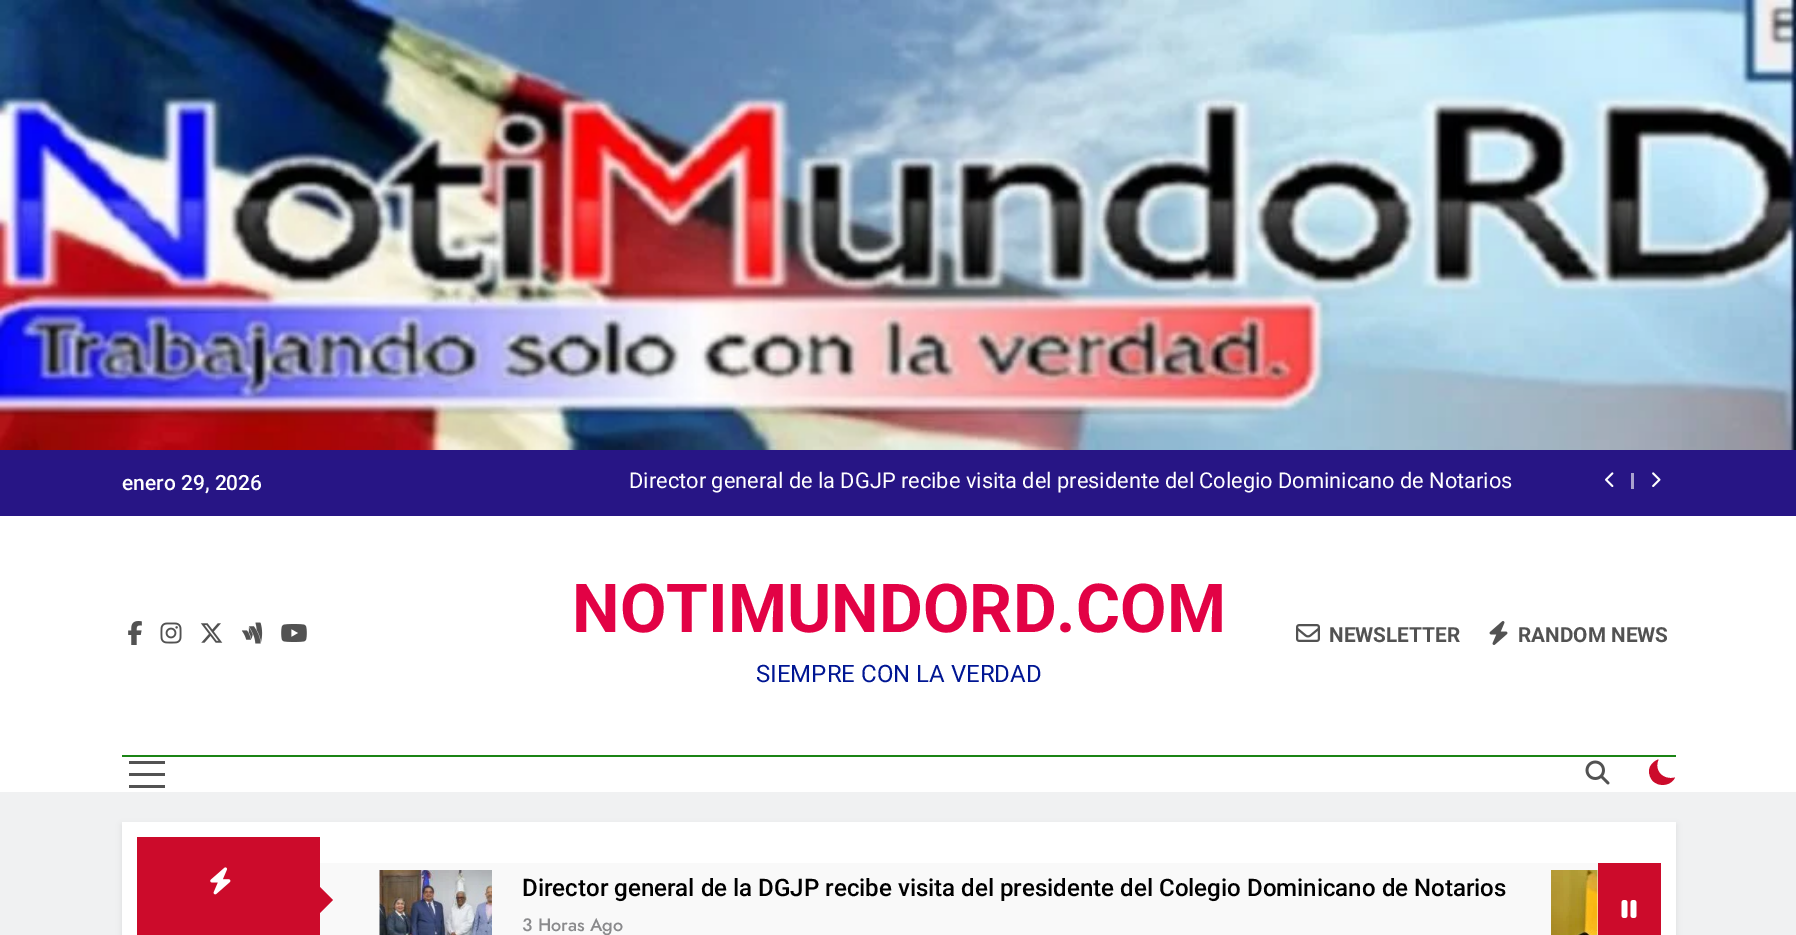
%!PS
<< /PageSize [1796 935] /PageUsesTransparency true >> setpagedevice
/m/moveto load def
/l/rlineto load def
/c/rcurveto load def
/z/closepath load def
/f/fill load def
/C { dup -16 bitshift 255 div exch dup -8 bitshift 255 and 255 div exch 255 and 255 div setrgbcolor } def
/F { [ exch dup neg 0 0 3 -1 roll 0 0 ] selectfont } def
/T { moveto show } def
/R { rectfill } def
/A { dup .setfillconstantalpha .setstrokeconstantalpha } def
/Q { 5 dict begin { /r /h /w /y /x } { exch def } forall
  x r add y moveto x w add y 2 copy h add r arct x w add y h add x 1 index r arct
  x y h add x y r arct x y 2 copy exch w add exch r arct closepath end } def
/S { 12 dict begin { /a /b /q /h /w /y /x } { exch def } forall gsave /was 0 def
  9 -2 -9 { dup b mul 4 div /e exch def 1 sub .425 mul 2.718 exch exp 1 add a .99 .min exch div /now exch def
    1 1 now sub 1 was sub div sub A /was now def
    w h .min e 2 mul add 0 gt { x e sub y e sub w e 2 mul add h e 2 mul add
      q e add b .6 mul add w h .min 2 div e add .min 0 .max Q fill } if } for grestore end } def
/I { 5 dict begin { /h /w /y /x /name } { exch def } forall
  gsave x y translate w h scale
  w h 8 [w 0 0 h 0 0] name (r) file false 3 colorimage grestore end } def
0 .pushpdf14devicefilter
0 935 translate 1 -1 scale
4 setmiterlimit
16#F0F1F2 C
0 0 1796 935 R
(1.rgb) 0 0 1796 450 I
16#271585 C
0 450 1796 66 R
/Roboto-Medium 21 F
16#FFFFFF C
(enero 29, 2026) 122 490 T
/Roboto-Regular 21.8 F
(Director general de la DGJP recibe visita del presidente del Colegio Dominicano de Notarios) 629 488 T
(2.rgb) 1605 472 9 15 I
16#A9A1CE C
1631 473 3 16 R
(3.rgb) 1652 472 9 15 I
16#FFFFFF C
0 516 1796 276 R
(4.rgb) 128 621 14 24 I
(5.rgb) 160 622 22 22 I
(6.rgb) 200 623 23 20 I
(7.rgb) 241 622 22 22 I
(8.rgb) 281 624 26 18 I
/Roboto-Bold 67.5 F
16#E20245 C
(NOTIMUNDORD.COM) 572 632 T
/Roboto-Regular 24 F
16#001693 C
(SIEMPRE CON LA VERDAD) 756 682 T
(9.rgb) 1296 624 24 18 I
/Roboto-Bold 20.75 F
16#525252 C
(NEWSLETTER) 1329 642 T
(10.rgb) 1489 621 19 24 I
(RANDOM NEWS) 1518 642 T
16#1B8415 C
122 755 1554 2 R
16#525252 C
129 761 36 3 R
129 773 36 3 R
129 785 36 3 R
(11.rgb) 1585 760 25 25 I
16#CC0B2B C
1675 777.5 m -11.5 3 -21.5 -6.5 -16.5 -18 c -3.5 1 -6.5 3.5 -8 6.5 c -1.5 2.5 -2 5.5 -1 8.5 c 2.5 12.5 20 14 25.5 3 c z f
16#000000 C
122 825 1554 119 0 3 .08 S
16#FFFFFF C
122 822 1554 113 R
16#CC0B2B C
137 837 183 98 R
(12.rgb) 210 867 21 28 I
16#F9F9F9 C
320 863 1278 72 R
16#CC0B2B C
318 915 m 0 -30 l 15 15 l z f
(13.rgb) 379 870 113 65 I
/Roboto-Medium 24.1 F
16#000000 C
(Director general de la DGJP recibe visita del presidente del Colegio Dominicano de Notarios) 522 896 T
/Jost-Medium 18 F
16#8A8A8C C
(3 Horas Ago) 522 931 T
(14.rgb) 1551 870 47 65 I
16#CC0B2B C
1598 863 63 72 R
(15.rgb) 1621 900 16 18 I
.poppdf14devicefilter showpage
